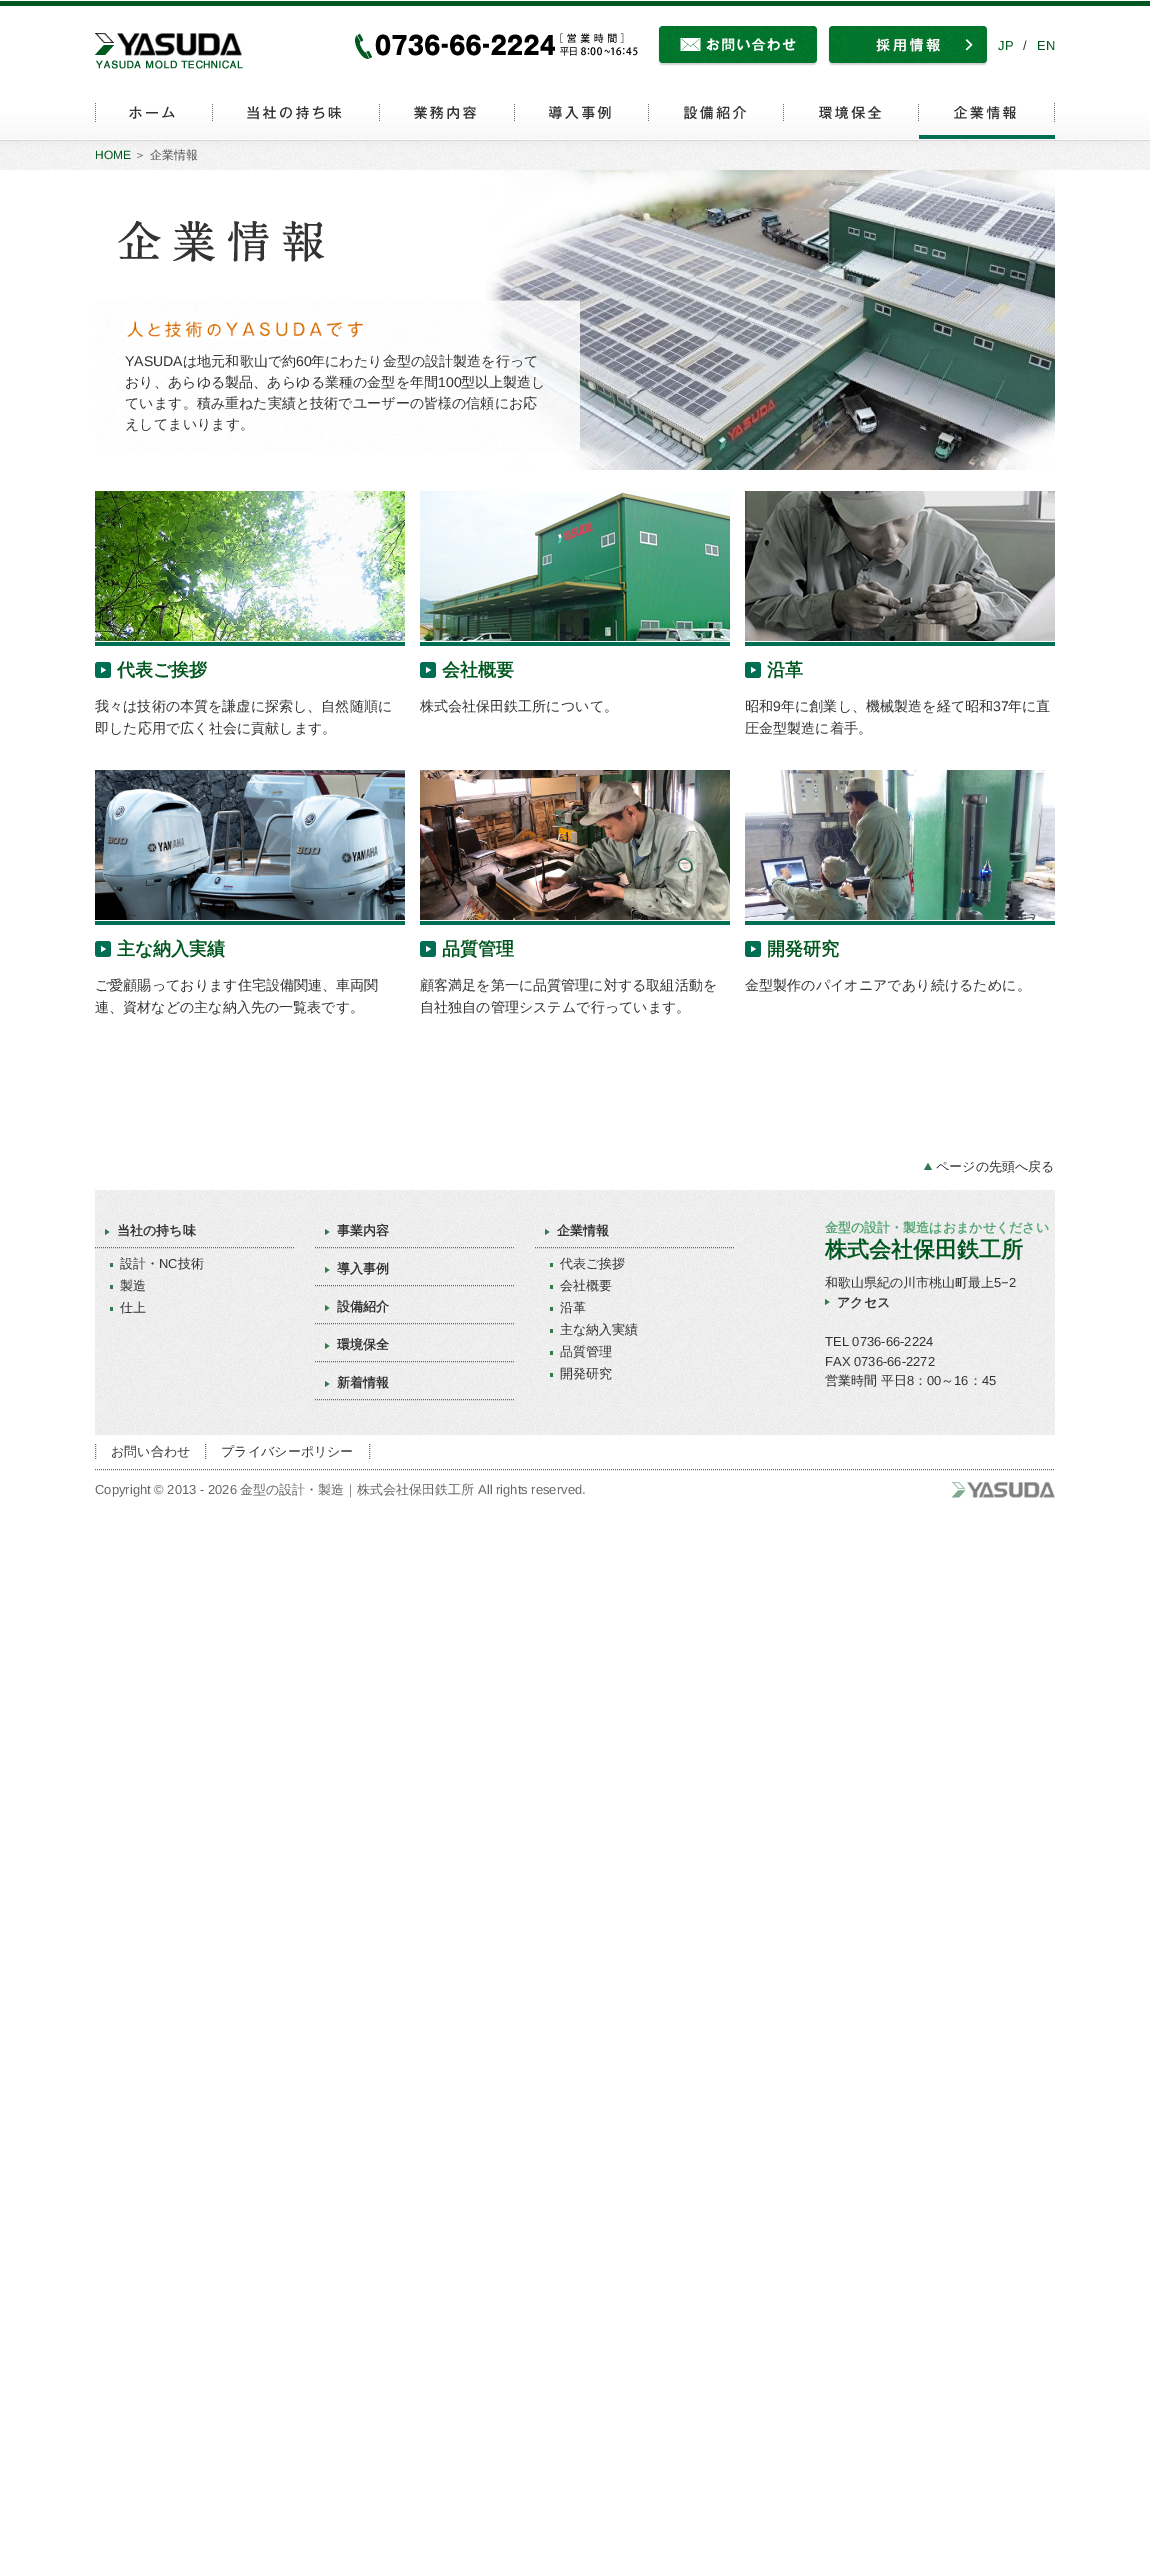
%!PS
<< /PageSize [1150 2552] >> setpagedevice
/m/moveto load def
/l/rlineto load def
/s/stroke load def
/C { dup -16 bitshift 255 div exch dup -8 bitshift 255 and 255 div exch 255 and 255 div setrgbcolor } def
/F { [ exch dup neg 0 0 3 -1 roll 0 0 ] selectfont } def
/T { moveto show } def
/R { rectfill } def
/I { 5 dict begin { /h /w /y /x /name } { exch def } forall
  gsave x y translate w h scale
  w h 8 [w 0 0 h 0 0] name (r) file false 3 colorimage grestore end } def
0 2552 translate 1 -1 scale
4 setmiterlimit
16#FFFFFF C
0 0 1150 2552 R
(1.rgb) 0 1 1150 169 I
(2.rgb) 95 33 149 36 I
(3.rgb) 355 33 283 26 I
(4.rgb) 658 26 160 40 I
(5.rgb) 828 26 160 40 I
/LiberationSans-Regular 13 F
16#00571F C
(JP) 998 50 T
16#333333 C
(/) 1023 50 T
16#00571F C
(EN) 1037 50 T
(6.rgb) 95 103 118 19 I
(7.rgb) 247 104 133 17 I
(8.rgb) 414 104 101 17 I
(9.rgb) 548 104 101 17 I
(10.rgb) 684 104 100 17 I
(11.rgb) 819 104 100 17 I
(12.rgb) 953 103 102 19 I
16#006E53 C
919 135 136 4 R
/LiberationSans-Regular 12 F
16#00571F C
(HOME) 95 159 T
/WenQuanYiZenHei-Medium 12 F
16#545454 C
(＞ 企業情報) 134 159 T
(13.rgb) 486 170 569 300 I
(14.rgb) 118 221 207 41 I
(15.rgb) 95 300 485 151 I
(16.rgb) 125 320 240 19 I
/LiberationSans-Regular 14.05 F
16#333333 C
(YASUDA) 125 366 T
/WenQuanYiZenHei-Medium 14.05 F
(は地元和歌山で約) 183 366 T
/LiberationSans-Regular 14.05 F
(60) 296 366 T
/WenQuanYiZenHei-Medium 14.05 F
(年にわたり金型の設計製造を行って) 311 366 T
(おり、あらゆる製品、あらゆる業種の金型を年間) 125 387 T
/LiberationSans-Regular 14.05 F
(100) 438 387 T
/WenQuanYiZenHei-Medium 14.05 F
(型以上製造し) 461 387 T
(ています。積み重ねた実績と技術でユーザーの皆様の信頼にお応) 125 408 T
(えしてまいります。) 125 429 T
(17.rgb) 95 491 310 150 I
16#006E52 C
95 642 310 4 R
(18.rgb) 95 662 16 16 I
/WenQuanYiZenHei-Bold 18 F
16#00571F C
(代表ご挨拶) 117 676 T
/WenQuanYiZenHei-Medium 14.05 F
16#333333 C
(我々は技術の本質を謙虚に探索し、自然随順に) 95 711 T
(即した応用で広く社会に貢献します。) 95 733 T
(19.rgb) 420 491 310 150 I
16#006E52 C
420 642 310 4 R
(18.rgb) 420 662 16 16 I
/WenQuanYiZenHei-Bold 18 F
16#00571F C
(会社概要) 442 676 T
/WenQuanYiZenHei-Medium 14.05 F
16#333333 C
(株式会社保田鉄工所について。) 420 711 T
(20.rgb) 745 491 310 150 I
16#006E52 C
745 642 310 4 R
(18.rgb) 745 662 16 16 I
/WenQuanYiZenHei-Bold 18 F
16#00571F C
(沿革) 767 676 T
/WenQuanYiZenHei-Medium 14.05 F
16#333333 C
(昭和) 745 711 T
/LiberationSans-Regular 14.05 F
(9) 773 711 T
/WenQuanYiZenHei-Medium 14.05 F
(年に創業し、機械製造を経て昭和) 781 711 T
/LiberationSans-Regular 14.05 F
(37) 993 711 T
/WenQuanYiZenHei-Medium 14.05 F
(年に直) 1008 711 T
(圧金型製造に着手。) 745 733 T
(21.rgb) 95 770 310 150 I
16#006E52 C
95 921 310 4 R
(18.rgb) 95 941 16 16 I
/WenQuanYiZenHei-Bold 18 F
16#00571F C
(主な納入実績) 117 955 T
/WenQuanYiZenHei-Medium 14.05 F
16#333333 C
(ご愛顧賜っております住宅設備関連、車両関) 95 990 T
(連、資材などの主な納入先の一覧表です。) 95 1012 T
(22.rgb) 420 770 310 150 I
16#006E52 C
420 921 310 4 R
(18.rgb) 420 941 16 16 I
/WenQuanYiZenHei-Bold 18 F
16#00571F C
(品質管理) 442 955 T
/WenQuanYiZenHei-Medium 14.05 F
16#333333 C
(顧客満足を第一に品質管理に対する取組活動を) 420 990 T
(自社独自の管理システムで行っています。) 420 1012 T
(23.rgb) 745 770 310 150 I
16#006E52 C
745 921 310 4 R
(18.rgb) 745 941 16 16 I
/WenQuanYiZenHei-Bold 18 F
16#00571F C
(開発研究) 767 955 T
/WenQuanYiZenHei-Medium 14.05 F
16#333333 C
(金型製作のパイオニアであり続けるために。) 745 990 T
(24.rgb) 924 1163 8 7 I
/WenQuanYiZenHei-Medium 13 F
(ページの先頭へ戻る) 936 1171 T
(25.rgb) 95 1190 960 245 I
(26.rgb) 105 1229 5 6 I
16#666666 C
[1 1] 0 setdash
95 1247.5 m 200 0 l s
/WenQuanYiZenHei-Bold 13 F
16#333333 C
(当社の持ち味) 117 1235 T
16#33794D C
110 1263 3 4 R
/WenQuanYiZenHei-Medium 13 F
16#333333 C
(設計・) 120 1268 T
/LiberationSans-Regular 13 F
(NC) 159 1268 T
/WenQuanYiZenHei-Medium 13 F
(技術) 178 1268 T
16#33794D C
110 1285 3 4 R
16#333333 C
(製造) 120 1290 T
16#33794D C
110 1307 3 4 R
16#333333 C
(仕上) 120 1312 T
(27.rgb) 325 1229 5 6 I
16#666666 C
315 1247.5 m 200 0 l s
/WenQuanYiZenHei-Bold 13 F
16#333333 C
(事業内容) 337 1235 T
(28.rgb) 325 1267 5 6 I
16#666666 C
315 1285.5 m 200 0 l s
16#333333 C
(導入事例) 337 1273 T
(29.rgb) 325 1305 5 6 I
16#666666 C
315 1323.5 m 200 0 l s
16#333333 C
(設備紹介) 337 1311 T
(30.rgb) 325 1343 5 6 I
16#666666 C
315 1361.5 m 200 0 l s
16#333333 C
(環境保全) 337 1349 T
(31.rgb) 325 1381 5 6 I
16#666666 C
315 1399.5 m 200 0 l s
16#333333 C
(新着情報) 337 1387 T
(32.rgb) 545 1229 5 6 I
16#666666 C
535 1247.5 m 200 0 l s
16#333333 C
(企業情報) 557 1235 T
16#33794D C
550 1263 3 4 R
/WenQuanYiZenHei-Medium 13 F
16#333333 C
(代表ご挨拶) 560 1268 T
16#33794D C
550 1285 3 4 R
16#333333 C
(会社概要) 560 1290 T
16#33794D C
550 1307 3 4 R
16#333333 C
(沿革) 560 1312 T
16#33794D C
550 1329 3 4 R
16#333333 C
(主な納入実績) 560 1334 T
16#33794D C
550 1351 3 4 R
16#333333 C
(品質管理) 560 1356 T
16#33794D C
550 1373 3 4 R
16#333333 C
(開発研究) 560 1378 T
/WenQuanYiZenHei-Bold 13 F
16#53A572 C
(金型の設計・製造はおまかせください) 825 1232 T
/WenQuanYiZenHei-Bold 22 F
16#00571F C
(株式会社保田鉄工所) 825 1257 T
/WenQuanYiZenHei-Medium 13 F
16#333333 C
(和歌山県紀の川市桃山町最上) 825 1287 T
/LiberationSans-Regular 13 F
(5−2) 994 1287 T
(33.rgb) 825 1299 5 6 I
/WenQuanYiZenHei-Bold 13 F
(アクセス) 837 1307 T
/LiberationSans-Regular 13 F
(TEL 0736-66-2224) 825 1346 T
(FAX 0736-66-2272) 825 1366 T
/WenQuanYiZenHei-Medium 13 F
(営業時間 平日) 825 1385 T
/LiberationSans-Regular 13 F
(8) 907 1385 T
/WenQuanYiZenHei-Medium 13 F
(：) 914 1385 T
/LiberationSans-Regular 13 F
(00) 927 1385 T
/WenQuanYiZenHei-Medium 13 F
(～) 941 1385 T
/LiberationSans-Regular 13 F
(16) 954 1385 T
/WenQuanYiZenHei-Medium 13 F
(：) 969 1385 T
/LiberationSans-Regular 13 F
(45) 982 1385 T
16#666666 C
95 1469.5 m 960 0 l s
95.5 1444 m 0 16 l s
205.5 1444 m 0 16 l s
/WenQuanYiZenHei-Medium 13 F
16#333333 C
(お問い合わせ) 111 1456 T
16#666666 C
369.5 1444 m 0 16 l s
16#333333 C
(プライバシーポリシー) 221 1456 T
/LiberationSans-Regular 13 F
16#666666 C
(Copyright © 2013 - 2026) 95 1494 T
/WenQuanYiZenHei-Medium 13 F
(金型の設計・製造｜株式会社保田鉄工所) 240 1494 T
/LiberationSans-Regular 13 F
(All rights reserved.) 478 1494 T
(34.rgb) 952 1482 103 16 I
showpage
